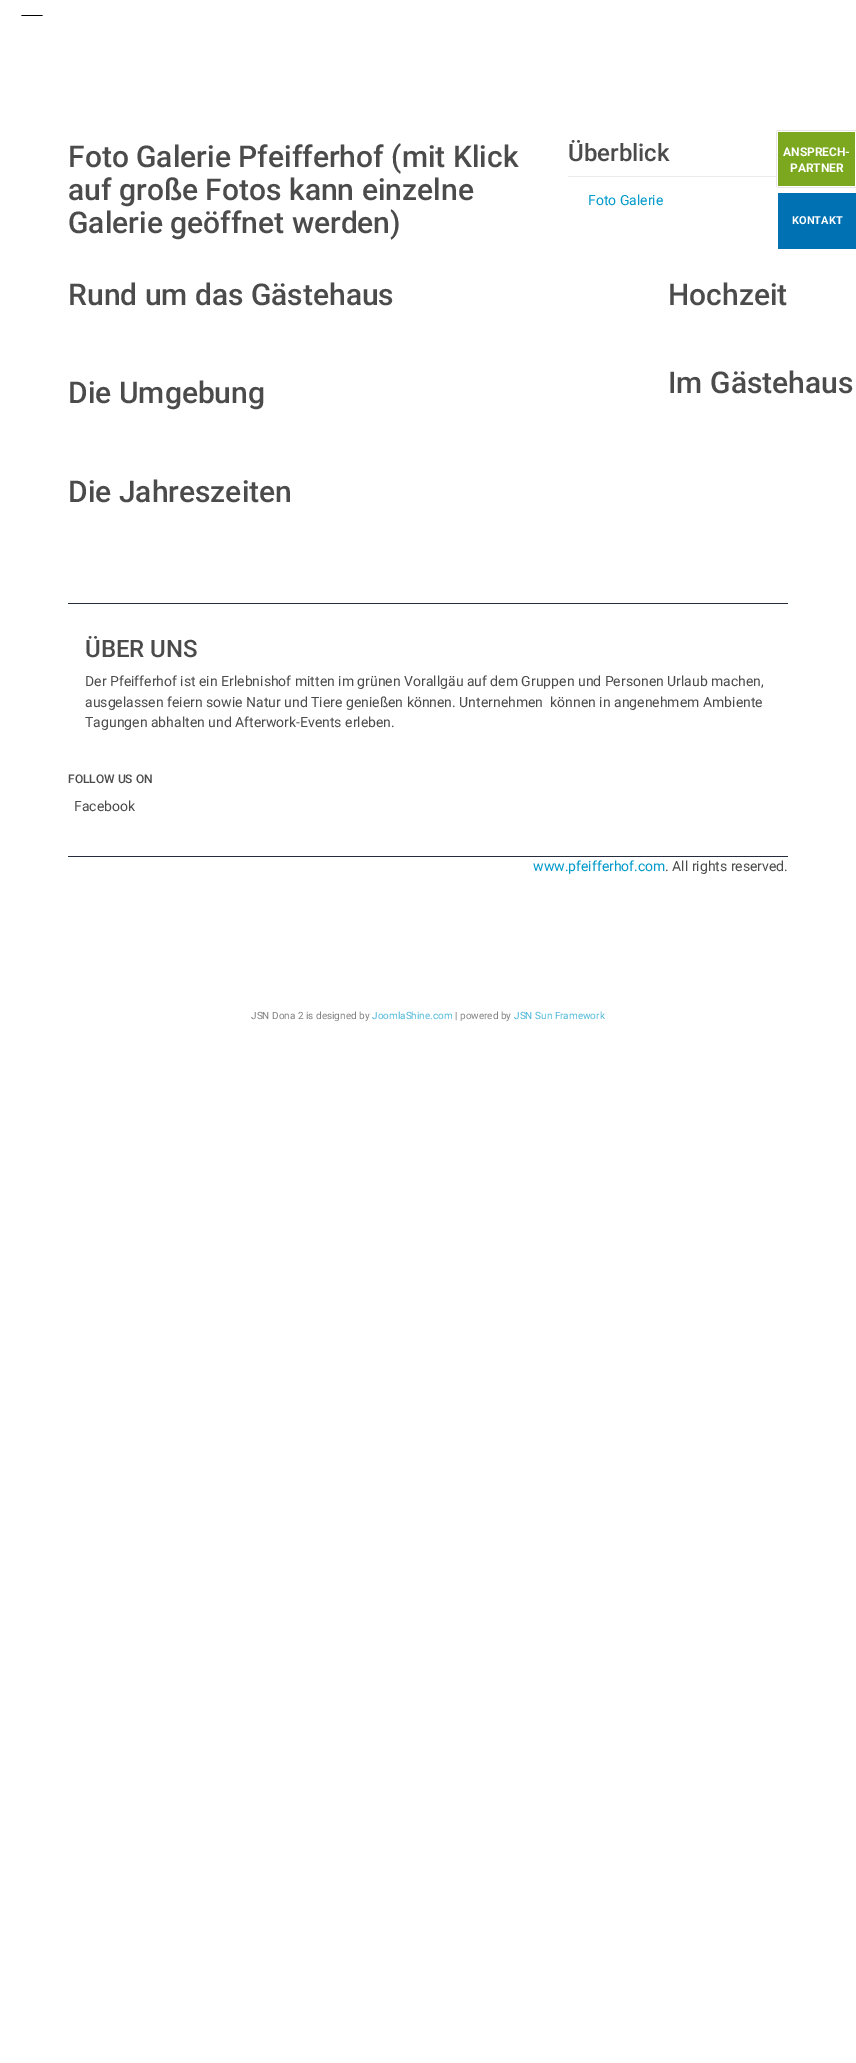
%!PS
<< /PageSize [856 2063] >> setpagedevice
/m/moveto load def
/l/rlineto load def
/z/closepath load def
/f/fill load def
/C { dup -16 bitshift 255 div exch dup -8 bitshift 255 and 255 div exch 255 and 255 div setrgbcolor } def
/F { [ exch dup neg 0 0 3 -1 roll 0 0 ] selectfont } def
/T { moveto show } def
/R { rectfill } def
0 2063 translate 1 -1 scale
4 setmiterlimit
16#FFFFFF C
0 0 856 2063 R
16#000000 C
43 16 m -22 0 l 1 -1 l 20 0 l z f
/Roboto-Medium 24 F
16#4B4B4B C
(Überblick) 568 161 T
16#EAEAEA C
568 176 208 1 R
/Roboto-Regular 14 F
16#009ACA C
(Foto Galerie) 588 205 T
/Roboto-Medium 30 F
16#4B4B4B C
(Foto Galerie Pfeifferhof \(mit Klick) 68 167 T
(auf große Fotos kann einzelne) 68 200 T
(Galerie geöffnet werden\)) 68 233 T
(Rund um das Gästehaus) 68 305 T
(Hochzeit) 668 305 T
(Die Umgebung) 68 403 T
(Im Gästehaus) 668 393 T
(Die Jahreszeiten) 68 502 T
16#E6E6E6 C
777 130 79 1 R
777 187 79 1 R
776 131 1 56 R
16#7CA81F C
778 132 77 54 R
/Roboto-Bold 12 F
16#FFFFFF C
(ANSPRECH-) 783 156 T
(PARTNER) 790 172 T
16#0071B2 C
778 193 78 56 R
/Roboto-Bold 11 F
16#FFFFFF C
(KONTAKT) 792 224 T
16#252C3B C
68 603 720 1 R
68 856 720 1 R
/Roboto-Medium 24 F
16#4B4B4B C
(ÜBER UNS) 85 657 T
/Roboto-Regular 14 F
(Der Pfeifferhof ist ein Erlebnishof mitten im grünen Vorallgäu auf dem Gruppen und Personen Urlaub machen,) 85 686 T
(ausgelassen feiern sowie Natur und Tiere genießen können. Unternehmen  können in angenehmem Ambiente) 85 707 T
(Tagungen abhalten und Afterwork-Events erleben.) 85 727 T
/Roboto-Medium 12 F
(FOLLOW US ON) 68 783 T
/Roboto-Regular 14 F
(Facebook) 74 811 T
16#009ACA C
(www.pfeifferhof.com) 533 871 T
16#4B4B4B C
(. All rights reserved.) 665 871 T
/Roboto-Regular 10 F
16#818181 C
(JSN Dona 2 is designed by) 251 1019 T
16#4DB8DA C
(JoomlaShine.com) 372 1019 T
16#818181 C
(| powered by) 455 1019 T
16#4DB8DA C
(JSN Sun Framework) 514 1019 T
showpage
